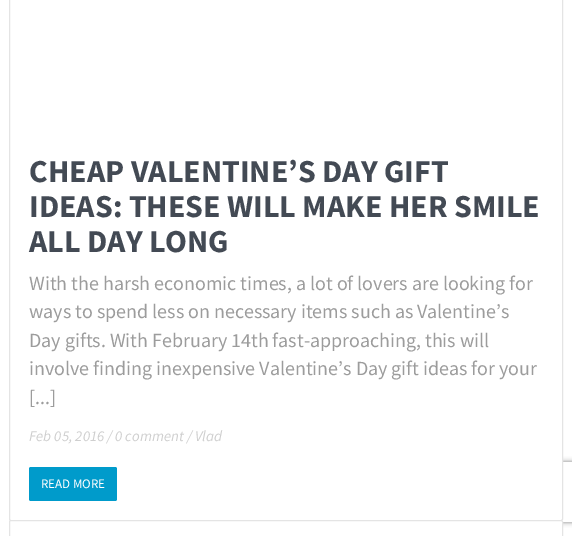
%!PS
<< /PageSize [572 536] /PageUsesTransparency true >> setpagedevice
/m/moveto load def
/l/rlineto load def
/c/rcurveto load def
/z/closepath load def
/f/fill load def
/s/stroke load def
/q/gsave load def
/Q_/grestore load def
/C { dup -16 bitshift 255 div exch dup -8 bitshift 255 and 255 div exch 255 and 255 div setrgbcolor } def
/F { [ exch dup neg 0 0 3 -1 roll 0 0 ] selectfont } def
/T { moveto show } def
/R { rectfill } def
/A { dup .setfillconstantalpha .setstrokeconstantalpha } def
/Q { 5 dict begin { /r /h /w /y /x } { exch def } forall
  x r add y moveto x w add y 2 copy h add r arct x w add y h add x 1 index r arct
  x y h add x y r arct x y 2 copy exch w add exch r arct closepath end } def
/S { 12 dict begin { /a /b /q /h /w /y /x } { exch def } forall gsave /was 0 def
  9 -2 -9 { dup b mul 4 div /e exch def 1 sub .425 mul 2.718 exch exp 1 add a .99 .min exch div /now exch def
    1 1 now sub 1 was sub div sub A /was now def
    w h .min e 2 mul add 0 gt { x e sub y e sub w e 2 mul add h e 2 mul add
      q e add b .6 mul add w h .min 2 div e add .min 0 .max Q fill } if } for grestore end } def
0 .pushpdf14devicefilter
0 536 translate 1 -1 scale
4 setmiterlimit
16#FFFFFF C
0 0 572 536 R
q
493 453 m 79 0 l 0 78 l -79 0 l z 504 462 m 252 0 l 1 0 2 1 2 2 c 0 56 l 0 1 -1 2 -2 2 c -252 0 l -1 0 -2 -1 -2 -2 c 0 -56 l 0 -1 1 -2 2 -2 c z eoclip newpath
16#808080 C
502 462 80 60 2 2.5 1 S
Q_
9.5 -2.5 553 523 1.5 Q q f Q_
16#E4E4E4 C
s
/SourceSansPro-Bold 32 F
16#434A54 C
(CHEAP VALENTINE’S DAY GIFT) 29 182 T
(IDEAS: THESE WILL MAKE HER SMILE) 29 217 T
(ALL DAY LONG) 29 252 T
/SourceSansPro-Regular 20 F
16#9C9C9C C
(With the harsh economic times, a lot of lovers are looking for) 29 290 T
(ways to spend less on necessary items such as Valentine’s) 29 318 T
(Day gifts. With February 14th fast-approaching, this will) 29 347 T
(involve finding inexpensive Valentine’s Day gift ideas for your) 29 375 T
([...]) 29 404 T
/SourceSansPro-Italic 15 F
16#CFCFCF C
(Feb 05, 2016 / 0 comment / Vlad) 29 441 T
16#009BCB C
29 467 88 34 2 Q f
/SourceSansPro-Regular 13 F
16#FFFFFF C
(READ MORE) 41 488 T
9.5 520.5 553 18 1.5 Q q f Q_
16#E4E4E4 C
s
.poppdf14devicefilter showpage
